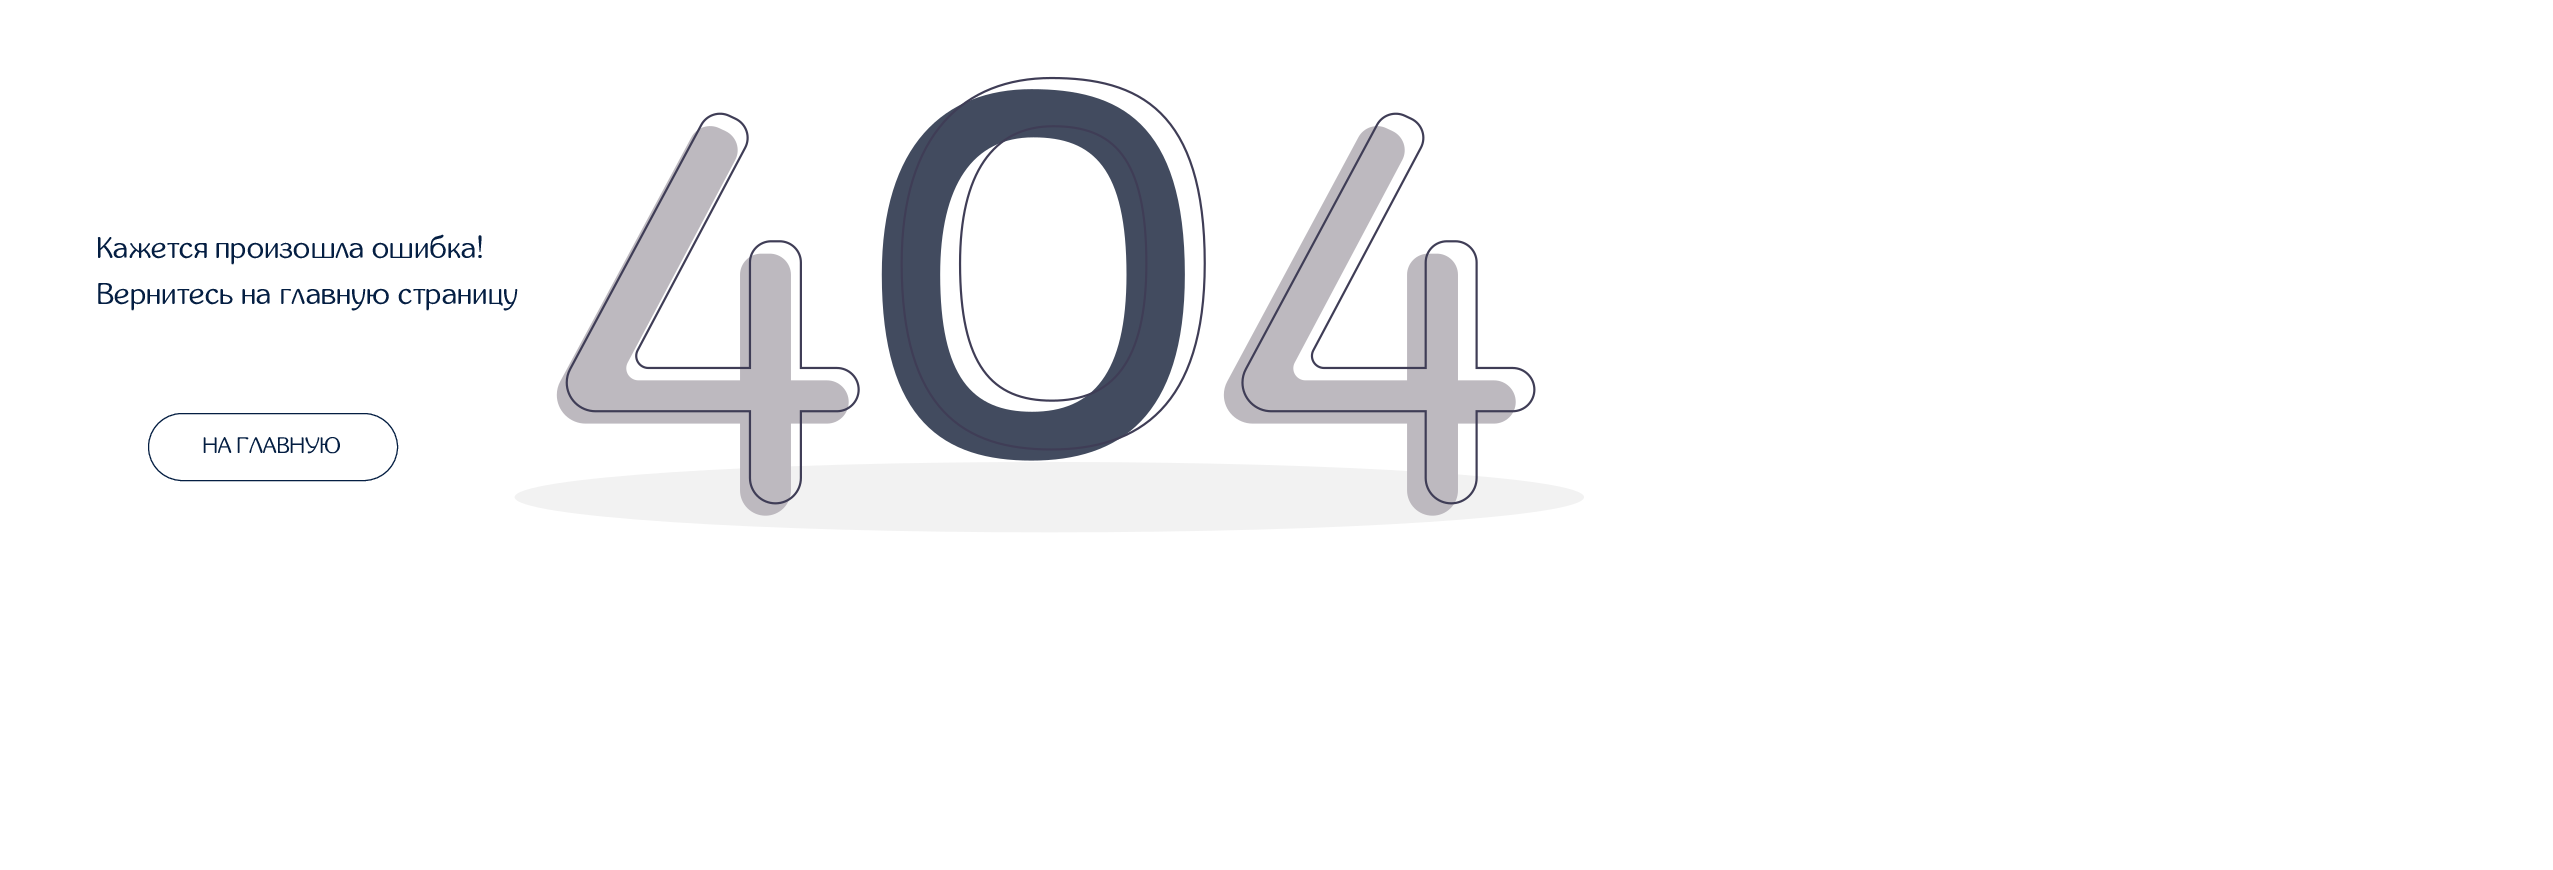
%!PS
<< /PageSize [2553 870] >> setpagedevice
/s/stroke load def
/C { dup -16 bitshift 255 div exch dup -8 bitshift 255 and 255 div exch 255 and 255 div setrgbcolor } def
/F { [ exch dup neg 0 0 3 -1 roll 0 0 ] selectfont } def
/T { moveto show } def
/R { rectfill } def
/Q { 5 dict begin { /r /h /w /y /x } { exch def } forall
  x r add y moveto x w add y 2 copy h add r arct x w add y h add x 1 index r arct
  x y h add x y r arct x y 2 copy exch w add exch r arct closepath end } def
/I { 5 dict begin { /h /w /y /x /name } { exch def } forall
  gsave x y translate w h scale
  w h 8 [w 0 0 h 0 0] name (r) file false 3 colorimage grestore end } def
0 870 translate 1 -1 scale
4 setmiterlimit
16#FFFFFF C
0 0 2553 870 R
/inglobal-Regular 30 F
16#041E42 C
(Кажется произошла ошибка!) 97 258 T
(1.rgb) 514 76 1070 457 I
(Вернитесь на главную страницу) 97 304 T
148.5 413.5 249 67 33.5 Q s
/inglobal-Regular 22.5 F
(НА ГЛАВНУЮ) 203 453 T
showpage
